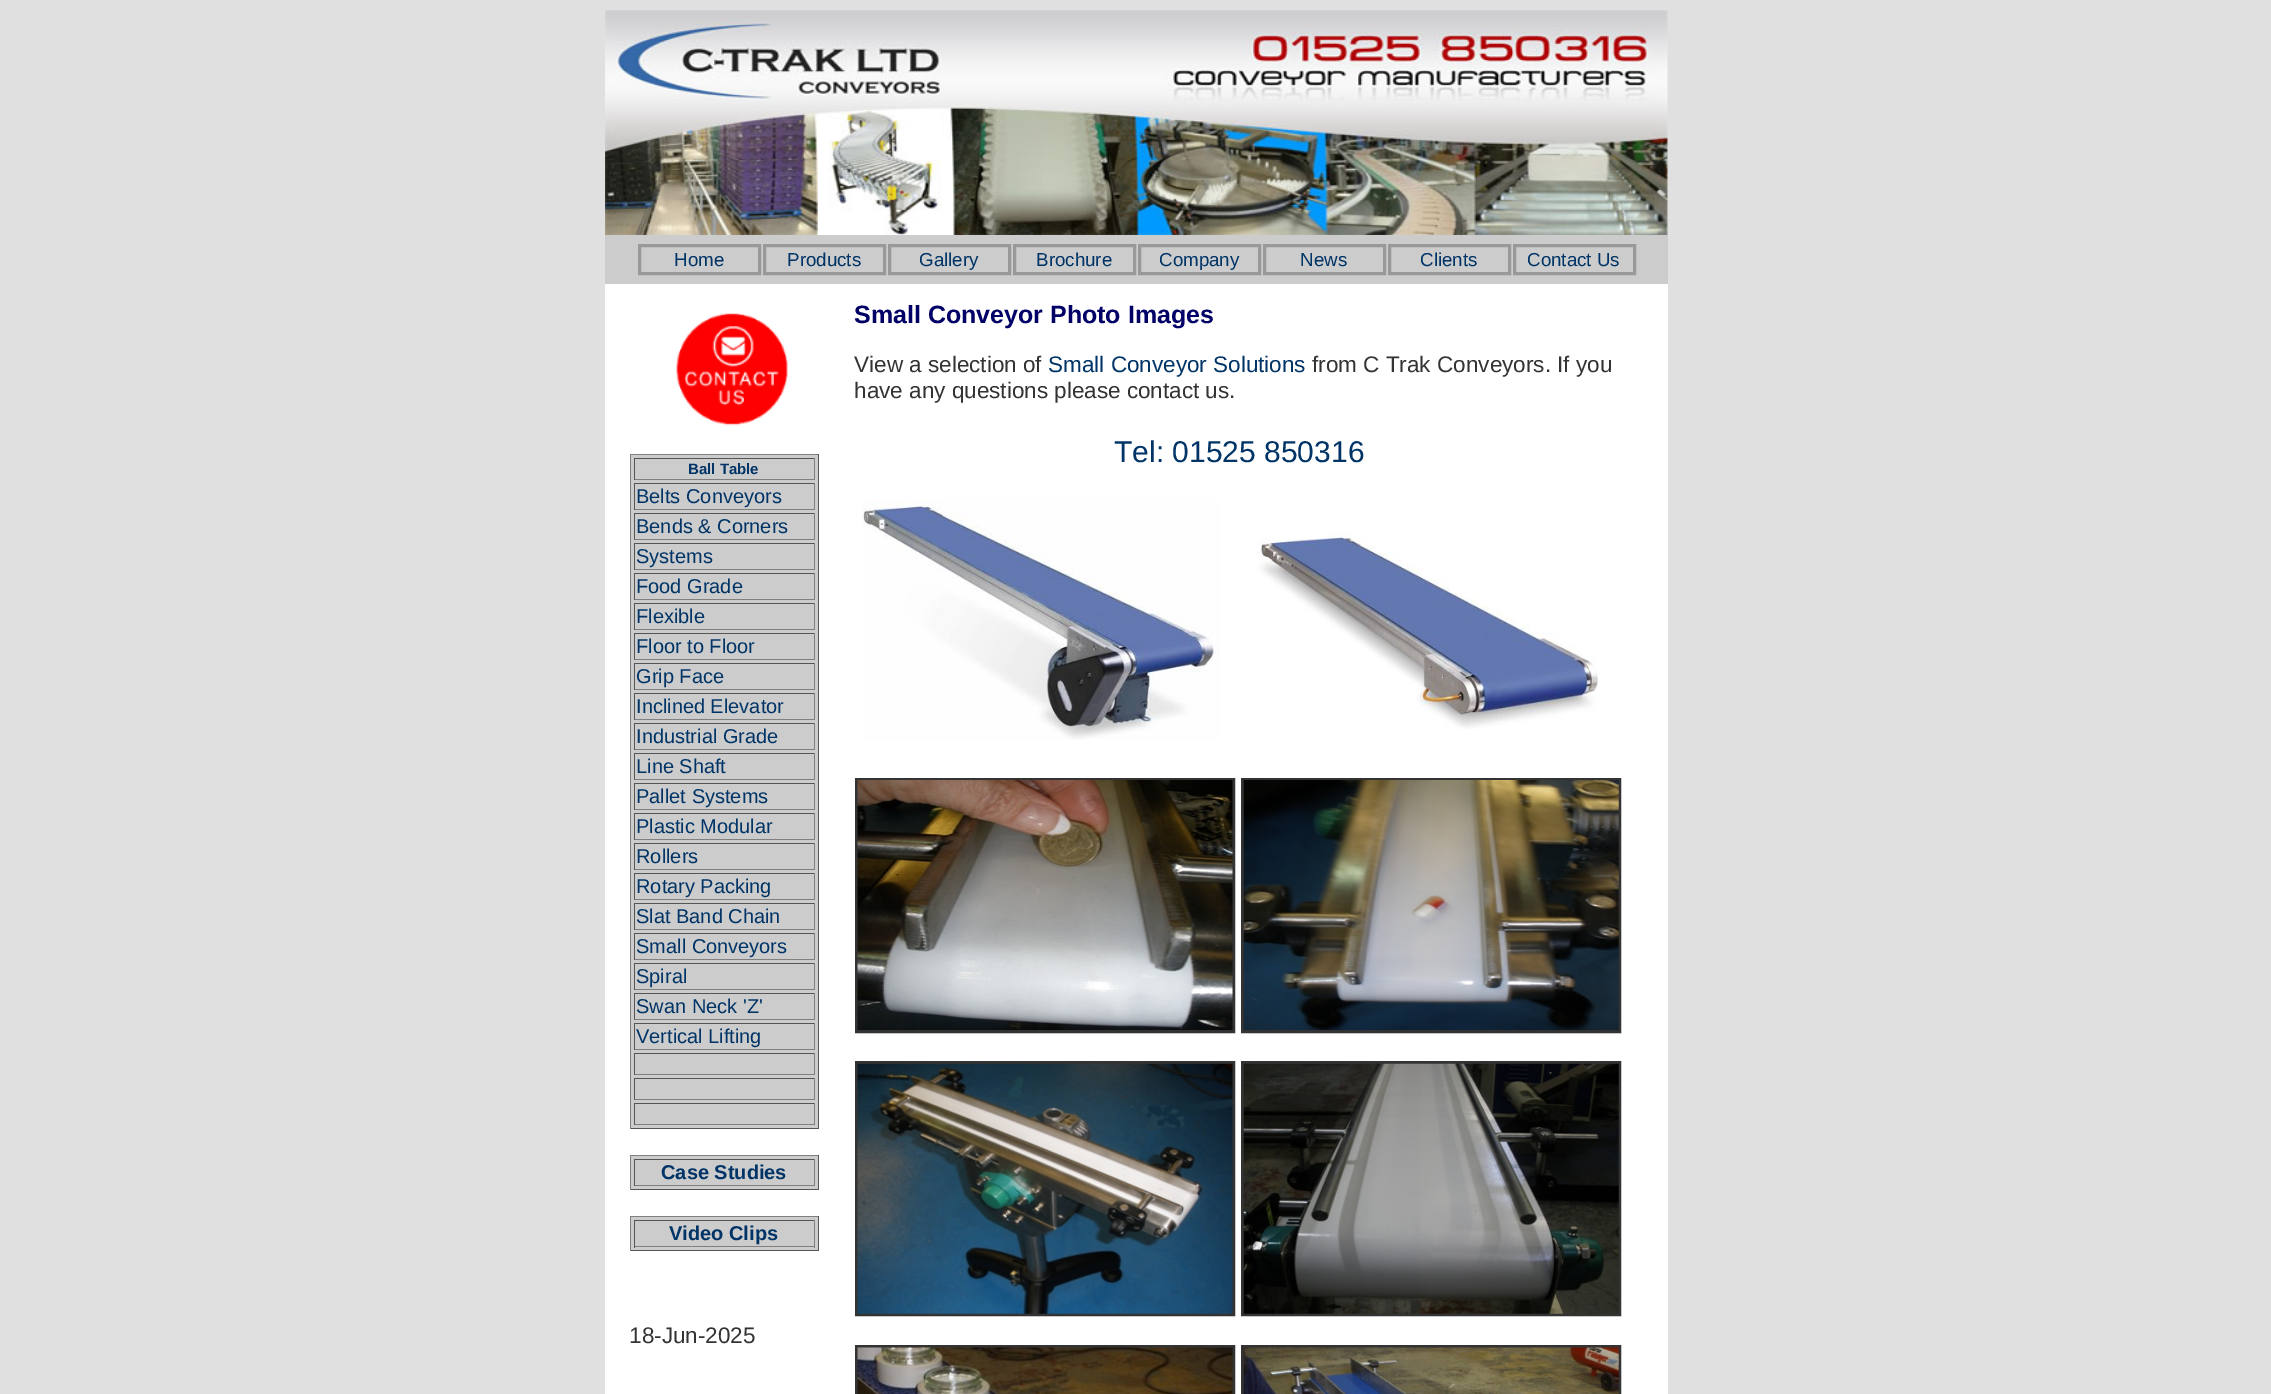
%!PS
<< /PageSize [2271 1394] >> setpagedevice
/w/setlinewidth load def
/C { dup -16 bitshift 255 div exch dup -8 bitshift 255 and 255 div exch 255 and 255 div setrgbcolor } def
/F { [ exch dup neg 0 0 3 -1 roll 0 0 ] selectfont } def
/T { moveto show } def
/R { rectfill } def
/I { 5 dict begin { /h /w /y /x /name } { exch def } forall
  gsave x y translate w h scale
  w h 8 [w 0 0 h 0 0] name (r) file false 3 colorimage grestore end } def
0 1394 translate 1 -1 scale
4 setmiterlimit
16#E0E0E0 C
0 0 2271 1394 R
(1.rgb) 605 10 1063 225 I
16#CCCCCC C
605 235 1063 49 R
16#999999 C
3 w
639.5 245.5 120 28 rectstroke
/LiberationSans-Regular 18.75 F
16#003366 C
(Home) 674 266 T
16#999999 C
764.5 245.5 120 28 rectstroke
16#003366 C
(Products) 787 266 T
16#999999 C
889.5 245.5 120 28 rectstroke
16#003366 C
(Gallery) 919 266 T
16#999999 C
1014.5 245.5 120 28 rectstroke
16#003366 C
(Brochure) 1036 266 T
16#999999 C
1139.5 245.5 120 28 rectstroke
16#003366 C
(Company) 1159 266 T
16#999999 C
1264.5 245.5 120 28 rectstroke
16#003366 C
(News) 1300 266 T
16#999999 C
1389.5 245.5 120 28 rectstroke
16#003366 C
(Clients) 1420 266 T
16#999999 C
1514.5 245.5 120 28 rectstroke
16#003366 C
(Contact Us) 1527 266 T
16#FFFFFF C
605 284 1063 1110 R
/LiberationSans-Bold 25 F
16#000066 C
(Small Conveyor Photo Images) 854 323 T
/LiberationSans-Regular 22.5 F
16#333333 C
(View a selection of) 854 372 T
16#003366 C
(Small Conveyor Solutions) 1048 372 T
16#333333 C
(from C Trak Conveyors. If you) 1312 372 T
(have any questions please contact us.) 854 398 T
/LiberationSans-Regular 30 F
16#003366 C
(Tel: 01525 850316) 1114 462 T
(2.rgb) 862 499 358 241 I
(3.rgb) 1257 533 341 196 I
16#333333 C
856.5 779.5 377 252 rectstroke
1242.5 779.5 377 252 rectstroke
(4.rgb) 857 780 376 250 I
(5.rgb) 1243 780 376 250 I
856.5 1062.5 377 252 rectstroke
1242.5 1062.5 377 252 rectstroke
(6.rgb) 857 1063 376 251 I
(7.rgb) 1243 1063 376 251 I
856.5 1346.5 377 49 rectstroke
1242.5 1346.5 377 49 rectstroke
(8.rgb) 857 1347 376 47 I
(9.rgb) 1243 1347 376 47 I
(10.rgb) 676 313 112 113 I
16#CCCCCC C
631 455 187 673 R
16#808080 C
630 454 189 1 R
16#555555 C
818 454 1 675 R
630 1128 189 1 R
16#808080 C
630 454 1 675 R
16#555555 C
634 458 181 1 R
16#808080 C
814 458 1 22 R
634 479 181 1 R
16#555555 C
634 458 1 22 R
/LiberationSans-Bold 15 F
16#003366 C
(Ball Table) 688 474 T
16#555555 C
634 483 181 1 R
16#808080 C
814 483 1 27 R
634 509 181 1 R
16#555555 C
634 483 1 27 R
/LiberationSans-Regular 20 F
16#003366 C
(Belts Conveyors) 636 503 T
16#555555 C
634 513 181 1 R
16#808080 C
814 513 1 27 R
634 539 181 1 R
16#555555 C
634 513 1 27 R
16#003366 C
(Bends & Corners) 636 533 T
16#555555 C
634 543 181 1 R
16#808080 C
814 543 1 27 R
634 569 181 1 R
16#555555 C
634 543 1 27 R
16#003366 C
(Systems) 636 563 T
16#555555 C
634 573 181 1 R
16#808080 C
814 573 1 27 R
634 599 181 1 R
16#555555 C
634 573 1 27 R
16#003366 C
(Food Grade) 636 593 T
16#555555 C
634 603 181 1 R
16#808080 C
814 603 1 27 R
634 629 181 1 R
16#555555 C
634 603 1 27 R
16#003366 C
(Flexible) 636 623 T
16#555555 C
634 633 181 1 R
16#808080 C
814 633 1 27 R
634 659 181 1 R
16#555555 C
634 633 1 27 R
16#003366 C
(Floor to Floor) 636 653 T
16#555555 C
634 663 181 1 R
16#808080 C
814 663 1 27 R
634 689 181 1 R
16#555555 C
634 663 1 27 R
16#003366 C
(Grip Face) 636 683 T
16#555555 C
634 693 181 1 R
16#808080 C
814 693 1 27 R
634 719 181 1 R
16#555555 C
634 693 1 27 R
16#003366 C
(Inclined Elevator) 636 713 T
16#555555 C
634 723 181 1 R
16#808080 C
814 723 1 27 R
634 749 181 1 R
16#555555 C
634 723 1 27 R
16#003366 C
(Industrial Grade) 636 743 T
16#555555 C
634 753 181 1 R
16#808080 C
814 753 1 27 R
634 779 181 1 R
16#555555 C
634 753 1 27 R
16#003366 C
(Line Shaft) 636 773 T
16#555555 C
634 783 181 1 R
16#808080 C
814 783 1 27 R
634 809 181 1 R
16#555555 C
634 783 1 27 R
16#003366 C
(Pallet Systems) 636 803 T
16#555555 C
634 813 181 1 R
16#808080 C
814 813 1 27 R
634 839 181 1 R
16#555555 C
634 813 1 27 R
16#003366 C
(Plastic Modular) 636 833 T
16#555555 C
634 843 181 1 R
16#808080 C
814 843 1 27 R
634 869 181 1 R
16#555555 C
634 843 1 27 R
16#003366 C
(Rollers) 636 863 T
16#555555 C
634 873 181 1 R
16#808080 C
814 873 1 27 R
634 899 181 1 R
16#555555 C
634 873 1 27 R
16#003366 C
(Rotary Packing) 636 893 T
16#555555 C
634 903 181 1 R
16#808080 C
814 903 1 27 R
634 929 181 1 R
16#555555 C
634 903 1 27 R
16#003366 C
(Slat Band Chain) 636 923 T
16#555555 C
634 933 181 1 R
16#808080 C
814 933 1 27 R
634 959 181 1 R
16#555555 C
634 933 1 27 R
16#003366 C
(Small Conveyors) 636 953 T
16#555555 C
634 963 181 1 R
16#808080 C
814 963 1 27 R
634 989 181 1 R
16#555555 C
634 963 1 27 R
16#003366 C
(Spiral) 636 983 T
16#555555 C
634 993 181 1 R
16#808080 C
814 993 1 27 R
634 1019 181 1 R
16#555555 C
634 993 1 27 R
16#003366 C
(Swan Neck 'Z') 636 1013 T
16#555555 C
634 1023 181 1 R
16#808080 C
814 1023 1 27 R
634 1049 181 1 R
16#555555 C
634 1023 1 27 R
16#003366 C
(Vertical Lifting) 636 1043 T
16#555555 C
634 1053 181 1 R
16#808080 C
814 1053 1 22 R
634 1074 181 1 R
16#555555 C
634 1053 1 22 R
634 1078 181 1 R
16#808080 C
814 1078 1 22 R
634 1099 181 1 R
16#555555 C
634 1078 1 22 R
634 1103 181 1 R
16#808080 C
814 1103 1 22 R
634 1124 181 1 R
16#555555 C
634 1103 1 22 R
16#CCCCCC C
631 1156 187 33 R
16#808080 C
630 1155 189 1 R
16#555555 C
818 1155 1 35 R
630 1189 189 1 R
16#808080 C
630 1155 1 35 R
16#555555 C
634 1159 181 1 R
16#808080 C
814 1159 1 27 R
634 1185 181 1 R
16#555555 C
634 1159 1 27 R
/LiberationSans-Bold 20 F
16#003366 C
(Case Studies) 661 1179 T
16#CCCCCC C
631 1217 187 33 R
16#808080 C
630 1216 189 1 R
16#555555 C
818 1216 1 35 R
630 1250 189 1 R
16#808080 C
630 1216 1 35 R
16#555555 C
634 1220 181 1 R
16#808080 C
814 1220 1 28 R
634 1246 181 1 R
16#555555 C
634 1220 1 28 R
16#003366 C
(Video Clips) 669 1240 T
/LiberationSans-Regular 22.5 F
16#333333 C
(18-Jun-2025) 629 1343 T
showpage
